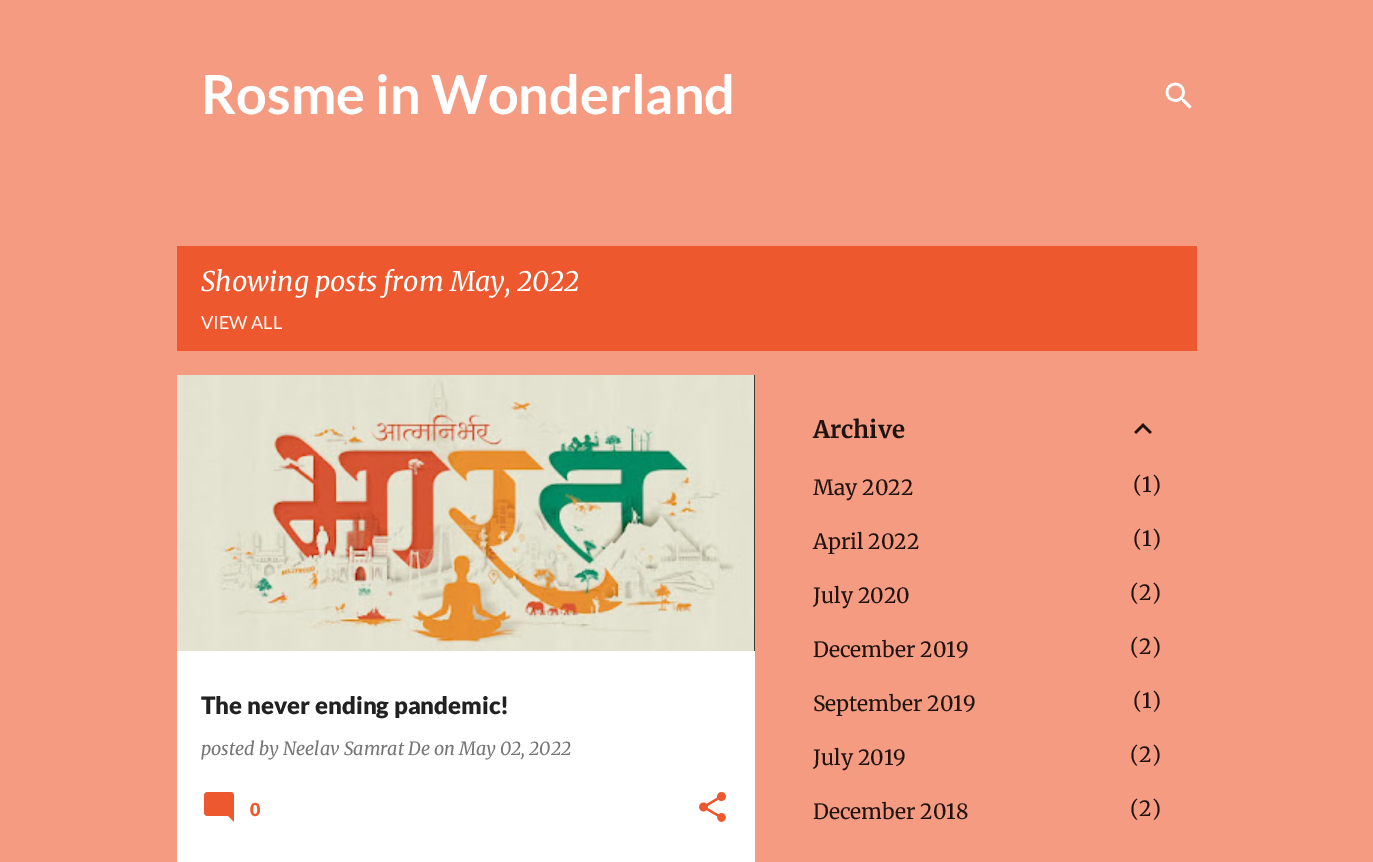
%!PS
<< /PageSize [1373 862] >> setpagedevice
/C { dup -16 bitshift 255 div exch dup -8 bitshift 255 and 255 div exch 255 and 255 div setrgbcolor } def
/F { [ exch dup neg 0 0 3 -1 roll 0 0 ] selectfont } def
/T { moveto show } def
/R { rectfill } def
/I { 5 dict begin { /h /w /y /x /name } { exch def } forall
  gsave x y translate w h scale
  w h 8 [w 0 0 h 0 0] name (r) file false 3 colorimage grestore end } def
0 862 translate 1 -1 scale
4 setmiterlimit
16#F59B82 C
0 0 1373 862 R
/Lato-Bold 54 F
16#FFFFFF C
(Rosme in Wonderland) 201 114 T
(1.rgb) 1165 82 27 27 I
16#EE582E C
177 246 1020 105 R
/Merriweather-Italic 27 F
16#FFFFFF C
(Showing posts from May, 2022) 201 291 T
/Lato-Regular 18 F
(VIEW ALL) 201 329 T
177 651 578 211 R
16#000000 C
754 375 1 276 R
(2.rgb) 177 375 578 276 I
/Lato-Black 24 F
16#212121 C
(The never ending pandemic!) 201 714 T
/Merriweather-Italic 18 F
16#757575 C
(posted by Neelav Samrat De on May 02, 2022) 201 755 T
(3.rgb) 204 792 30 30 I
/Lato-Black 18 F
16#EE582E C
(0) 250 816 T
(4.rgb) 699 792 27 30 I
/Merriweather-Bold 24 F
16#201411 C
(Archive) 813 438 T
(5.rgb) 1134 423 18 11 I
/Merriweather-Regular 21 F
(May 2022) 813 495 T
(\(1\)) 1133 492 T
(April 2022) 813 549 T
(\(1\)) 1133 546 T
(July 2020) 813 603 T
(\(2\)) 1130 600 T
(December 2019) 813 657 T
(\(2\)) 1130 654 T
(September 2019) 813 711 T
(\(1\)) 1133 708 T
(July 2019) 813 765 T
(\(2\)) 1130 762 T
(December 2018) 813 819 T
(\(2\)) 1130 816 T
showpage
